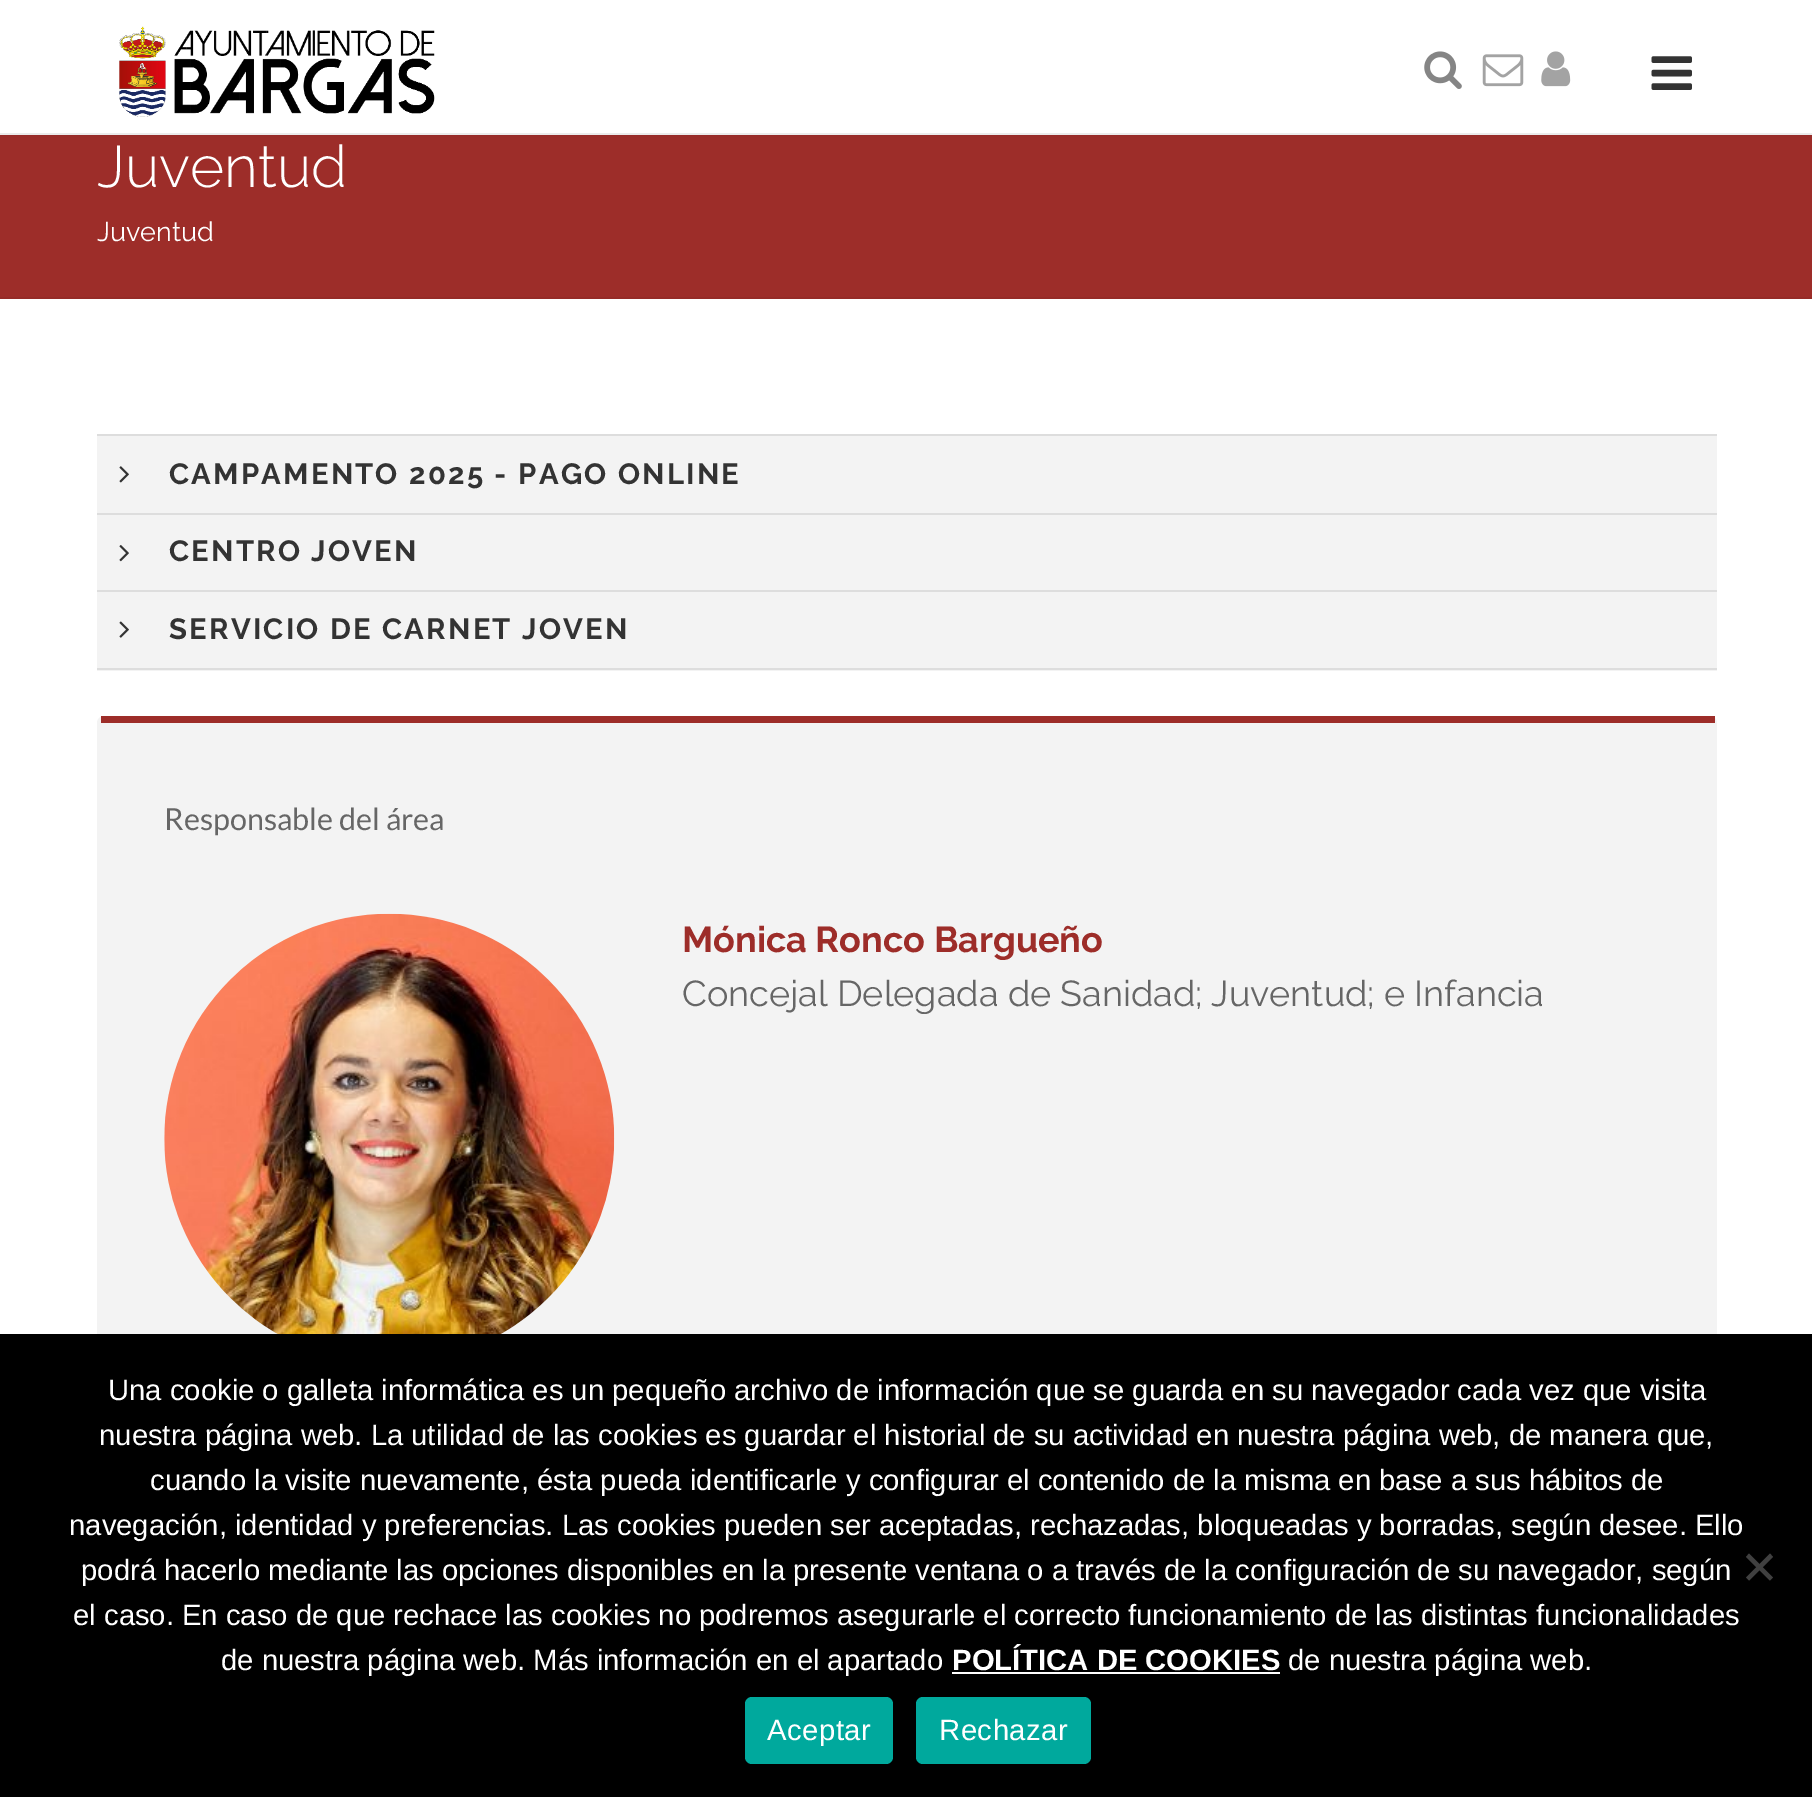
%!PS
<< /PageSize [1812 1797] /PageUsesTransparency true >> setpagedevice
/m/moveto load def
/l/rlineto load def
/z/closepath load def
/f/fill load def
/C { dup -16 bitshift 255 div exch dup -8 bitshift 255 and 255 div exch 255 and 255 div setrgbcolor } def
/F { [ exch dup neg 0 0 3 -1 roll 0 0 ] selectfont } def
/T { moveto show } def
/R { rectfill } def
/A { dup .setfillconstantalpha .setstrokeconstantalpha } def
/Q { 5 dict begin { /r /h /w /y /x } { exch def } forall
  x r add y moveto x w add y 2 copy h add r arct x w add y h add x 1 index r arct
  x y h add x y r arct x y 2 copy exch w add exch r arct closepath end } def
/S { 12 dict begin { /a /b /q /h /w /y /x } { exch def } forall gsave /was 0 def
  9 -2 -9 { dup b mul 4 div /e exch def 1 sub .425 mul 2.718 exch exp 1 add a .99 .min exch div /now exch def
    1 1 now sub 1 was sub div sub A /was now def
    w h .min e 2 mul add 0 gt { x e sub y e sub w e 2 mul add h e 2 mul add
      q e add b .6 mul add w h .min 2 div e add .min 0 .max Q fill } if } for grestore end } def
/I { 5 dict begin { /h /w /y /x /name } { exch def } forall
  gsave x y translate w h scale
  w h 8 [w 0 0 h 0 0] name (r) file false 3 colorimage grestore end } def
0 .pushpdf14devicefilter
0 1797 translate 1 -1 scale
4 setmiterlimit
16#FFFFFF C
0 0 1812 1797 R
16#9D2D29 C
0 135 1812 162 R
16#000000 C
0 0 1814 135 0 2 .1 S
16#FFFFFF C
0 0 1812 133 R
16#EBEBEB C
0 133 1812 2 R
(1.rgb) 119 26 316 91 I
(2.rgb) 1424 51 38 38 I
(3.rgb) 1482 54 42 33 I
(4.rgb) 1541 51 30 36 I
(5.rgb) 1651 56 41 34 I
16#952B27 C
0 297 1812 2 R
/Raleway-Light 58.5 F
16#FFFFFF C
(Juventud) 97 187 T
/Raleway-Regular 27 F
(Juventud) 97 241 T
16#F3F3F3 C
97 436 1620 235 R
16#DDDDDD C
97 434 1620 2 R
97 513 1620 2 R
(6.rgb) 119 466 10 17 I
/Raleway-Bold 29.25 F
16#333333 C
169 484 m 2.25 0 (CAMPAMENTO 2025 - PAGO ONLINE) ashow
16#DDDDDD C
97 590 1620 2 R
(7.rgb) 119 545 10 17 I
16#333333 C
169 561 m 2.25 0 (CENTRO JOVEN) ashow
16#DDDDDD C
97 668 1620 2 R
(8.rgb) 119 621 10 17 I
16#333333 C
169 639 m 2.25 0 (SERVICIO DE CARNET JOVEN) ashow
16#F3F3F3 C
97 716 1620 715 7 Q f
16#9D2D29 C
101 716 1614 7 R
/Lato-Regular 30.5 F
16#666666 C
(Responsable del área) 164 830 T
(9.rgb) 164 913 451 421 I
/Raleway-Bold 36 F
16#9D2D29 C
(Mónica Ronco Bargueño) 682 952 T
/Raleway-Regular 36 F
16#666666 C
(Concejal Delegada de Sanidad; Juventud; e Infancia) 682 1006 T
16#000000 C
0 1334 1812 463 R
/LiberationSans-Regular 29.25 F
16#FFFFFF C
(Una cookie o galleta informática es un pequeño archivo de información que se guarda en su navegador cada vez que visita) 108 1400 T
(nuestra página web. La utilidad de las cookies es guardar el historial de su actividad en nuestra página web, de manera que,) 99 1445 T
(cuando la visite nuevamente, ésta pueda identificarle y configurar el contenido de la misma en base a sus hábitos de) 150 1490 T
(navegación, identidad y preferencias. Las cookies pueden ser aceptadas, rechazadas, bloqueadas y borradas, según desee. Ello) 69 1535 T
(podrá hacerlo mediante las opciones disponibles en la presente ventana o a través de la configuración de su navegador, según) 81 1580 T
(el caso. En caso de que rechace las cookies no podremos asegurarle el correcto funcionamiento de las distintas funcionalidades) 73 1625 T
(de nuestra página web. Más información en el apartado) 221 1670 T
/LiberationSans-Bold 29.25 F
(POLÍTICA DE COOKIES) 952 1670 T
952 1672 328 2 R
/LiberationSans-Regular 29.25 F
(de nuestra página web.) 1288 1670 T
16#404040 C
1770 1553.5 m 3 3.5 l -24 23.5 l -3 -3 l z f
1746 1557 m 3 -3.5 l 24 24 l -3 3 l z f
16#00A99D C
745 1697 148 67 7 Q f
16#FFFFFF C
767 1740 m .5 0 (Aceptar) ashow
16#00A99D C
916 1697 175 67 7 Q f
16#FFFFFF C
939 1740 m .5 0 (Rechazar) ashow
.poppdf14devicefilter showpage
